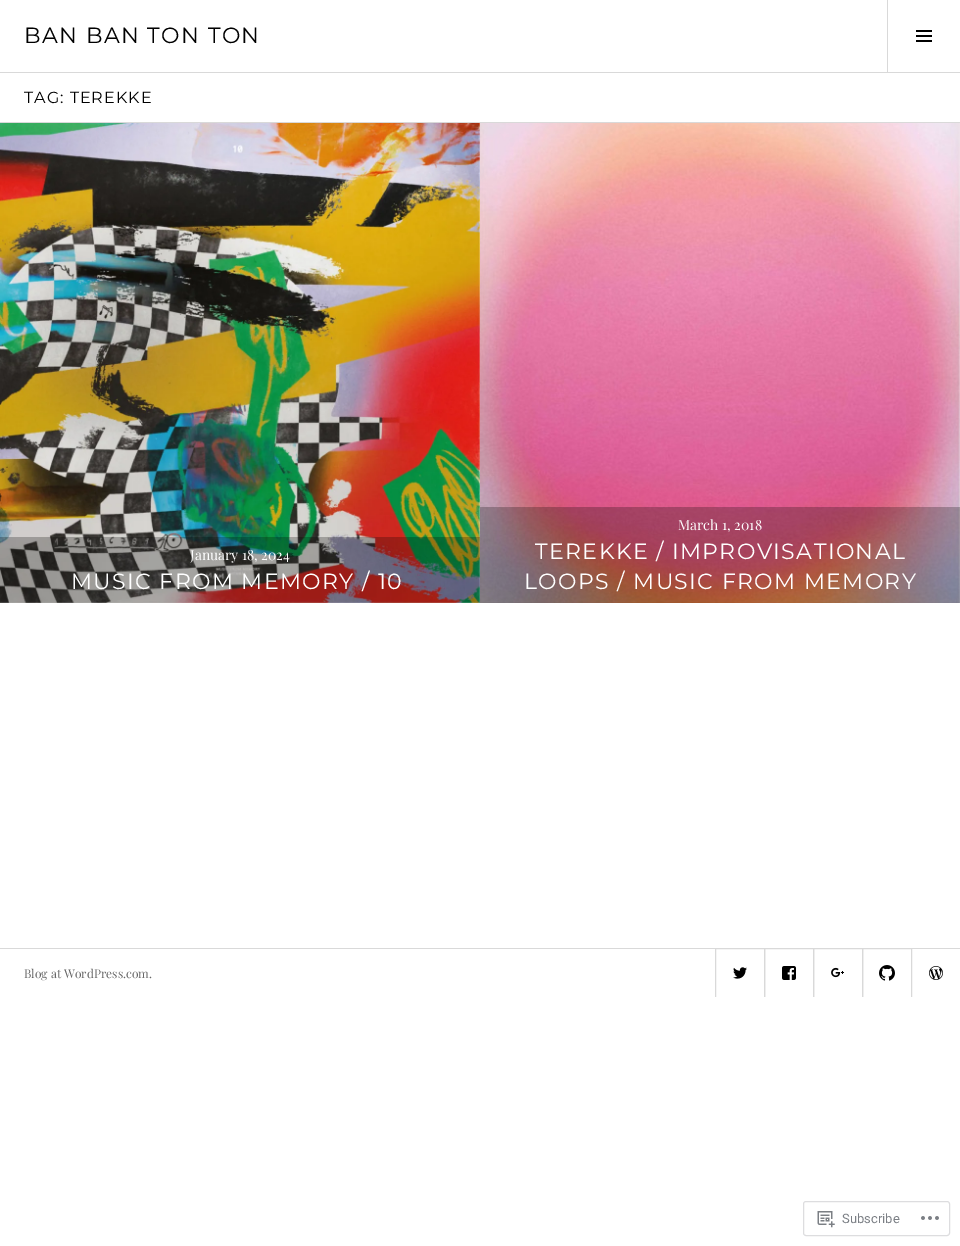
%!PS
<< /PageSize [960 1246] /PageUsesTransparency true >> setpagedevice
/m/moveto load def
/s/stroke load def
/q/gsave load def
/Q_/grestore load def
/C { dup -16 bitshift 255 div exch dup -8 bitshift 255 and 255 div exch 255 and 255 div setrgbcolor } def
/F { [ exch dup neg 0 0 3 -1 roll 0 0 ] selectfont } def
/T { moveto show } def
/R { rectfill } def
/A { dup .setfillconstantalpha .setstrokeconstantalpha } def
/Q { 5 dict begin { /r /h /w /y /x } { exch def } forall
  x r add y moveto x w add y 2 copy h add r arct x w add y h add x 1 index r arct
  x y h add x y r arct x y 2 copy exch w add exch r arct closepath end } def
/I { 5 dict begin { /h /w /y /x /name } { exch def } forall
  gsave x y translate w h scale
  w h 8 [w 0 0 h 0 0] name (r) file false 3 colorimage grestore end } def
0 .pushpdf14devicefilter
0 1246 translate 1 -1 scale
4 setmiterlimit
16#FFFFFF C
0 0 960 1246 R
16#D9D9D9 C
0 72 960 1 R
/Montserrat-Regular 22 F
16#000000 C
24 43 m 1.4 0 (BAN BAN TON TON) ashow
16#D9D9D9 C
887 0 1 72 R
(1.rgb) 916 30 16 12 I
0 122 960 1 R
/Montserrat-Regular 16 F
16#000000 C
24 103 m 1 0 (TAG: TEREKKE) ashow
(2.rgb) 0 123 480 480 I
0.25 A
0 537 480 66 R
/PlayfairDisplay-Regular 14 F
1 A
16#FFFFFF C
(January 18, 2024) 190 560 T
/Montserrat-Regular 22 F
71 589 m 1.4 0 (MUSIC FROM MEMORY / 10) ashow
(3.rgb) 480 123 480 480 I
0.25 A
16#000000 C
480 507 480 96 R
/PlayfairDisplay-Regular 14 F
1 A
16#FFFFFF C
(March 1, 2018) 678 530 T
/Montserrat-Regular 22 F
535 559 m 1.4 0 (TEREKKE / IMPROVISATIONAL) ashow
524 589 m 1.4 0 (LOOPS / MUSIC FROM MEMORY) ashow
16#D9D9D9 C
0 948 960 1 R
/PlayfairDisplay-Regular 12 F
16#666666 C
(Blog at WordPress.com.) 24 978 T
q
0 949 960 48 rectclip
16#D9D9D9 C
715.5 948.5 49 49 rectstroke
Q_
(4.rgb) 733 967 14 12 I
q
0 949 960 48 rectclip
16#D9D9D9 C
764.5 948.5 49 49 rectstroke
Q_
(5.rgb) 782 966 14 14 I
q
0 949 960 48 rectclip
16#D9D9D9 C
813.5 948.5 49 49 rectstroke
Q_
(6.rgb) 831 967 13 11 I
q
0 949 960 48 rectclip
16#D9D9D9 C
862.5 948.5 49 49 rectstroke
Q_
(7.rgb) 879 965 16 16 I
(8.rgb) 929 966 14 14 I
16#DDDDDF C
803.5 1201.5 146 34 2.5 Q s
(9.rgb) 817 1211 18 17 I
/Roboto-Regular 13 F
16#7B7F85 C
(Subscribe) 842 1223 T
(10.rgb) 921 1216 18 4 I
.poppdf14devicefilter showpage
